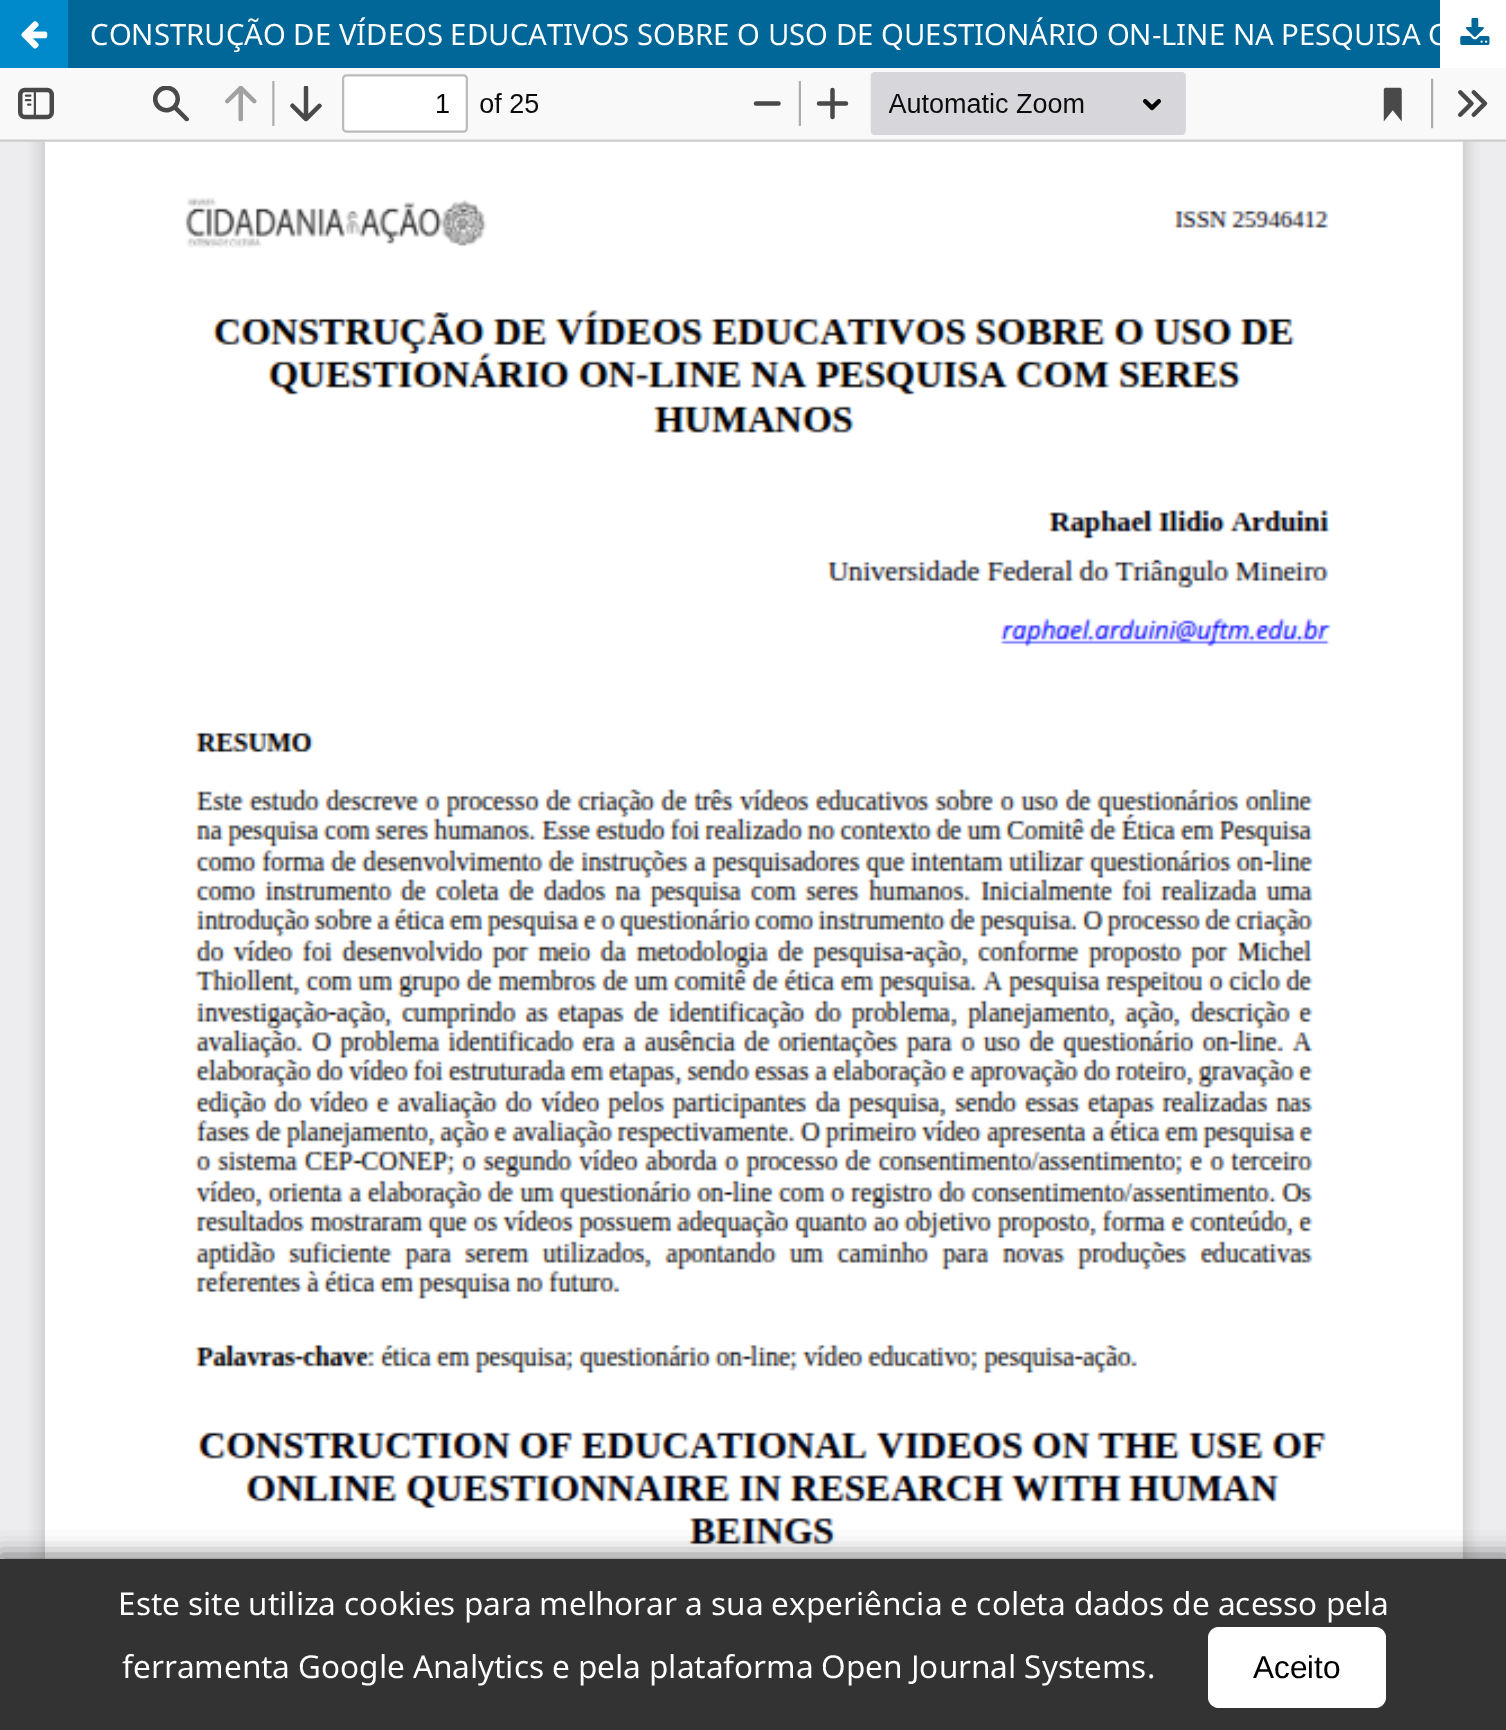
%!PS
<< /PageSize [1506 1730] /PageUsesTransparency true >> setpagedevice
/f/fill load def
/C { dup -16 bitshift 255 div exch dup -8 bitshift 255 and 255 div exch 255 and 255 div setrgbcolor } def
/F { [ exch dup neg 0 0 3 -1 roll 0 0 ] selectfont } def
/T { moveto show } def
/R { rectfill } def
/A { dup .setfillconstantalpha .setstrokeconstantalpha } def
/Q { 5 dict begin { /r /h /w /y /x } { exch def } forall
  x r add y moveto x w add y 2 copy h add r arct x w add y h add x 1 index r arct
  x y h add x y r arct x y 2 copy exch w add exch r arct closepath end } def
/S { 12 dict begin { /a /b /q /h /w /y /x } { exch def } forall gsave /was 0 def
  9 -2 -9 { dup b mul 4 div /e exch def 1 sub .425 mul 2.718 exch exp 1 add a .99 .min exch div /now exch def
    1 1 now sub 1 was sub div sub A /was now def
    w h .min e 2 mul add 0 gt { x e sub y e sub w e 2 mul add h e 2 mul add
      q e add b .6 mul add w h .min 2 div e add .min 0 .max Q fill } if } for grestore end } def
/I { 5 dict begin { /h /w /y /x /name } { exch def } forall
  gsave x y translate w h scale
  w h 8 [w 0 0 h 0 0] name (r) file false 3 colorimage grestore end } def
0 .pushpdf14devicefilter
0 1730 translate 1 -1 scale
4 setmiterlimit
16#FFFFFF C
0 0 1506 1730 R
16#006798 C
68 0 1372 68 R
16#008ACB C
0 0 68 68 R
(1.rgb) 21 21 27 28 I
/NotoSans-Regular 29.3 F
16#FFFFFF C
(CONSTRUÇÃO DE VÍDEOS EDUCATIVOS SOBRE O USO DE QUESTIONÁRIO ON-LINE NA PESQUISA C) 90 45 T
(2.rgb) 1460 18 30 27 I
(3.rgb) 0 68 1506 1491 I
16#000000 C
0 1555 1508 171 0 11 .5 S
16#333333 C
0 1559 1506 171 R
/NotoSans-Regular 31.5 F
16#FFFFFF C
(Este site utiliza cookies para melhorar a sua experiência e coleta dados de acesso pela) 118 1615 T
(ferramenta Google Analytics e pela plataforma Open Journal Systems.) 122 1678 T
1208 1627 178 81 11 Q f
/LiberationSans-Regular 31.5 F
16#000000 C
(Aceito) 1253 1678 T
.poppdf14devicefilter showpage
